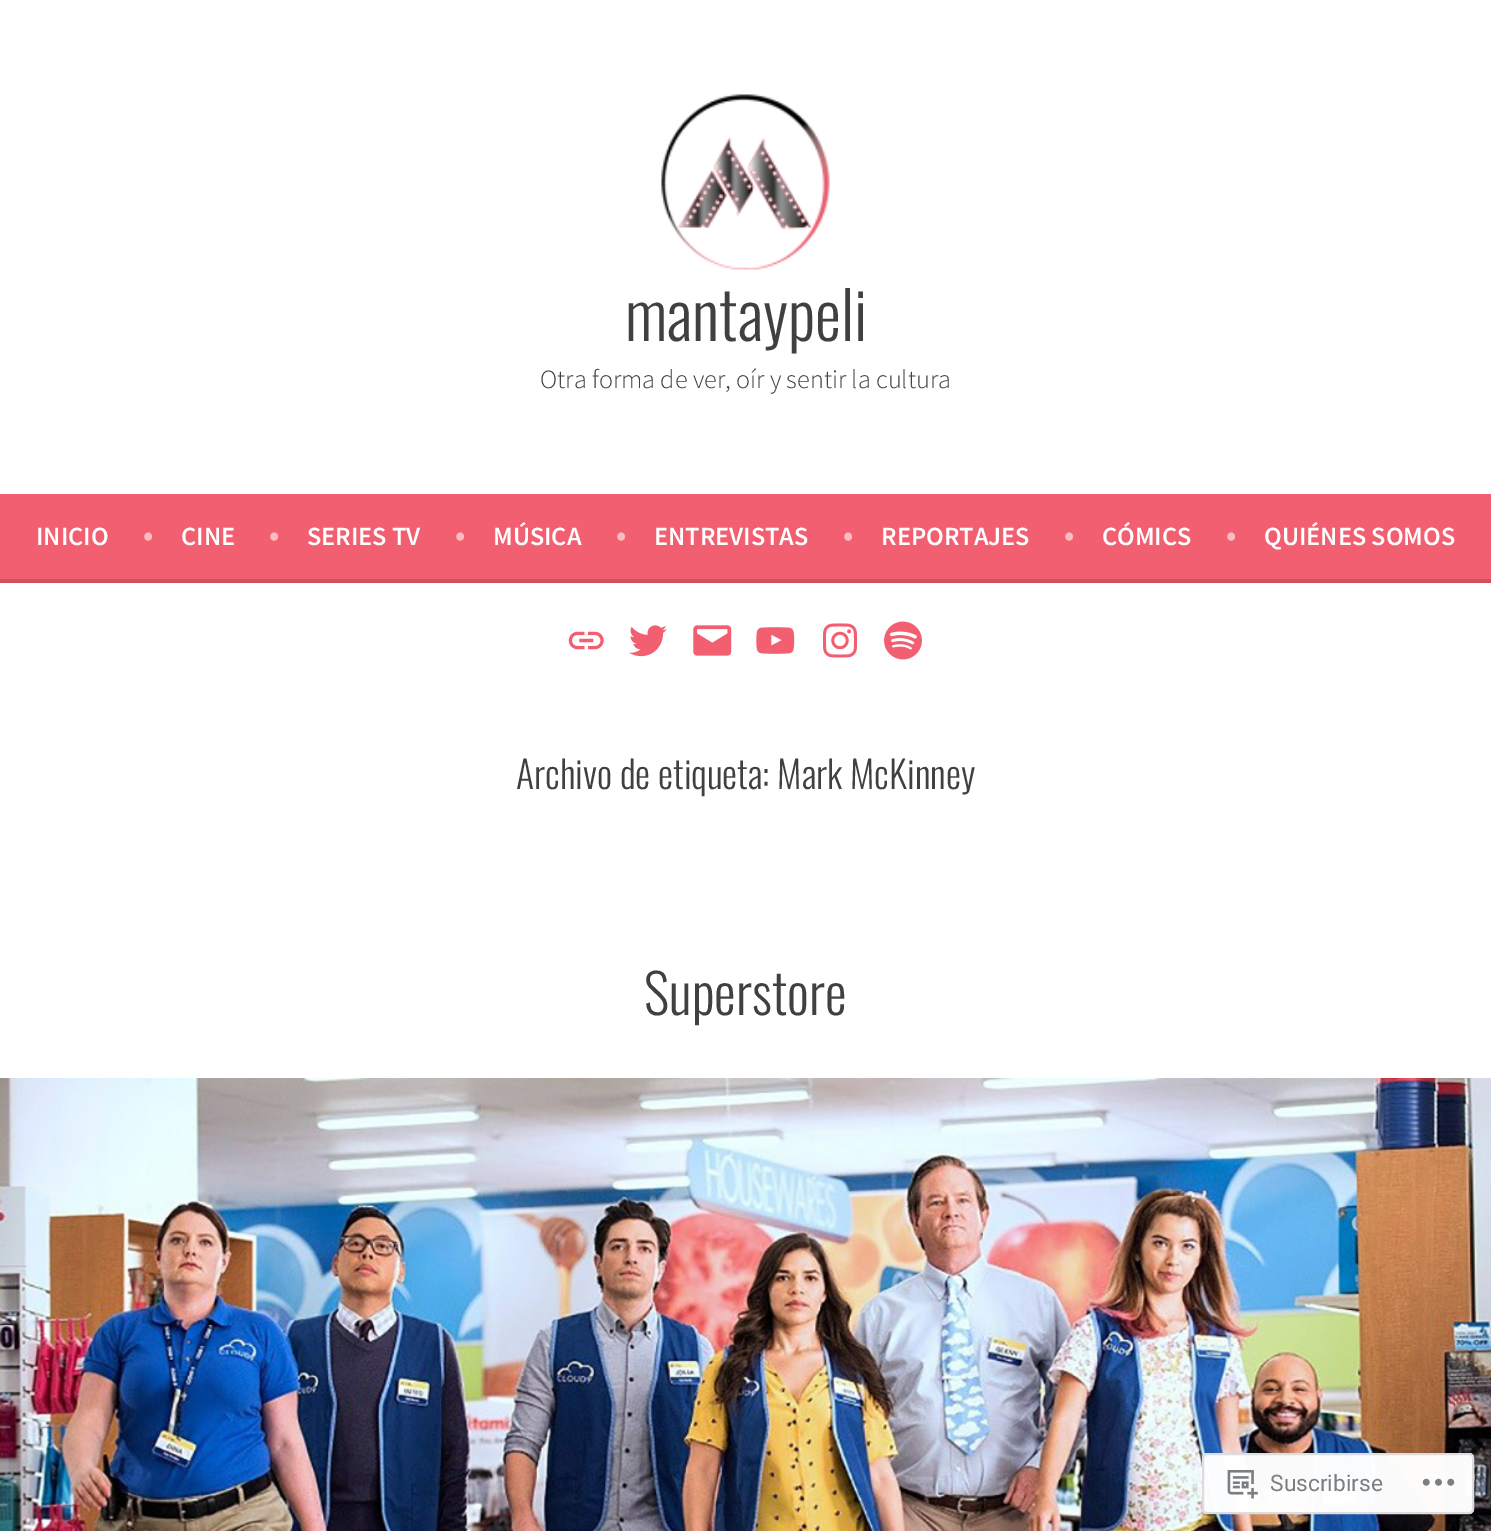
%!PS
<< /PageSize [1491 1531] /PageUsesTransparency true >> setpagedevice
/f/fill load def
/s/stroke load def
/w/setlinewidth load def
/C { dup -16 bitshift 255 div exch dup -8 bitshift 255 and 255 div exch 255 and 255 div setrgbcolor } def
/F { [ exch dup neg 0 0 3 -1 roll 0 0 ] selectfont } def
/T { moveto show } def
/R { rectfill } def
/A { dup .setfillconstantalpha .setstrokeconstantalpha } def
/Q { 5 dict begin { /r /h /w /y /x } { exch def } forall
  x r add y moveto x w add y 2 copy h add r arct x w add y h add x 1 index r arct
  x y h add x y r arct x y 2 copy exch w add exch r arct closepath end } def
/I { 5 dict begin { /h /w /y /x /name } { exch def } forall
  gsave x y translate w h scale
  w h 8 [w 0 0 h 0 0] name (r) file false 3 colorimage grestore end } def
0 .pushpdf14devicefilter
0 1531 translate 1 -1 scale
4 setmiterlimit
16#FFFFFF C
0 0 1491 1531 R
(1.rgb) 661 94 169 176 I
/Oswald-Light 65.5 F
16#404040 C
(mantaypeli) 625 341 T
/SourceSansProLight-Light 26.25 F
(Otra forma de ver, oír y sentir la cultura) 540 388 T
16#F25F70 C
0 494 1491 85 R
16#CE515F C
0 579 1491 4 R
/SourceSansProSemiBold-SemiBold 26.25 F
16#FFFFFF C
(INICIO) 36 545 T
/SourceSansProSemiBold-SemiBold 32 F
16#FABCC3 C
(•) 143 545 T
/SourceSansProSemiBold-SemiBold 26.25 F
16#FFFFFF C
(CINE) 181 545 T
/SourceSansProSemiBold-SemiBold 32 F
16#FABCC3 C
(•) 269 545 T
/SourceSansProSemiBold-SemiBold 26.25 F
16#FFFFFF C
(SERIES TV) 307 545 T
/SourceSansProSemiBold-SemiBold 32 F
16#FABCC3 C
(•) 455 545 T
/SourceSansProSemiBold-SemiBold 26.25 F
16#FFFFFF C
(MÚSICA) 493 545 T
/SourceSansProSemiBold-SemiBold 32 F
16#FABCC3 C
(•) 616 545 T
/SourceSansProSemiBold-SemiBold 26.25 F
16#FFFFFF C
(ENTREVISTAS) 654 545 T
/SourceSansProSemiBold-SemiBold 32 F
16#FABCC3 C
(•) 843 545 T
/SourceSansProSemiBold-SemiBold 26.25 F
16#FFFFFF C
(REPORTAJES) 881 545 T
/SourceSansProSemiBold-SemiBold 32 F
16#FABCC3 C
(•) 1064 545 T
/SourceSansProSemiBold-SemiBold 26.25 F
16#FFFFFF C
(CÓMICS) 1102 545 T
/SourceSansProSemiBold-SemiBold 32 F
16#FABCC3 C
(•) 1226 545 T
/SourceSansProSemiBold-SemiBold 26.25 F
16#FFFFFF C
(QUIÉNES SOMOS) 1264 545 T
(2.rgb) 568 631 36 19 I
(3.rgb) 629 625 38 32 I
(4.rgb) 693 625 39 31 I
(5.rgb) 756 627 39 27 I
(6.rgb) 822 623 36 35 I
(7.rgb) 884 621 38 39 I
/Oswald-Light 37.75 F
16#404040 C
(Archivo de etiqueta: Mark McKinney) 516 789 T
/Oswald-Light 54.5 F
(Superstore) 644 1015 T
(8.rgb) 0 1078 1491 453 I
0.98 A
16#FFFFFF C
1202 1453 272 61 5 Q f
16#DCDCDE C
2 w
1203 1454 270 59 4 Q s
1 A
(9.rgb) 1227 1470 31 29 I
/Roboto-Regular 22.75 F
16#7B7F84 C
(Suscribirse) 1270 1491 T
(10.rgb) 1422 1478 33 8 I
.poppdf14devicefilter showpage
